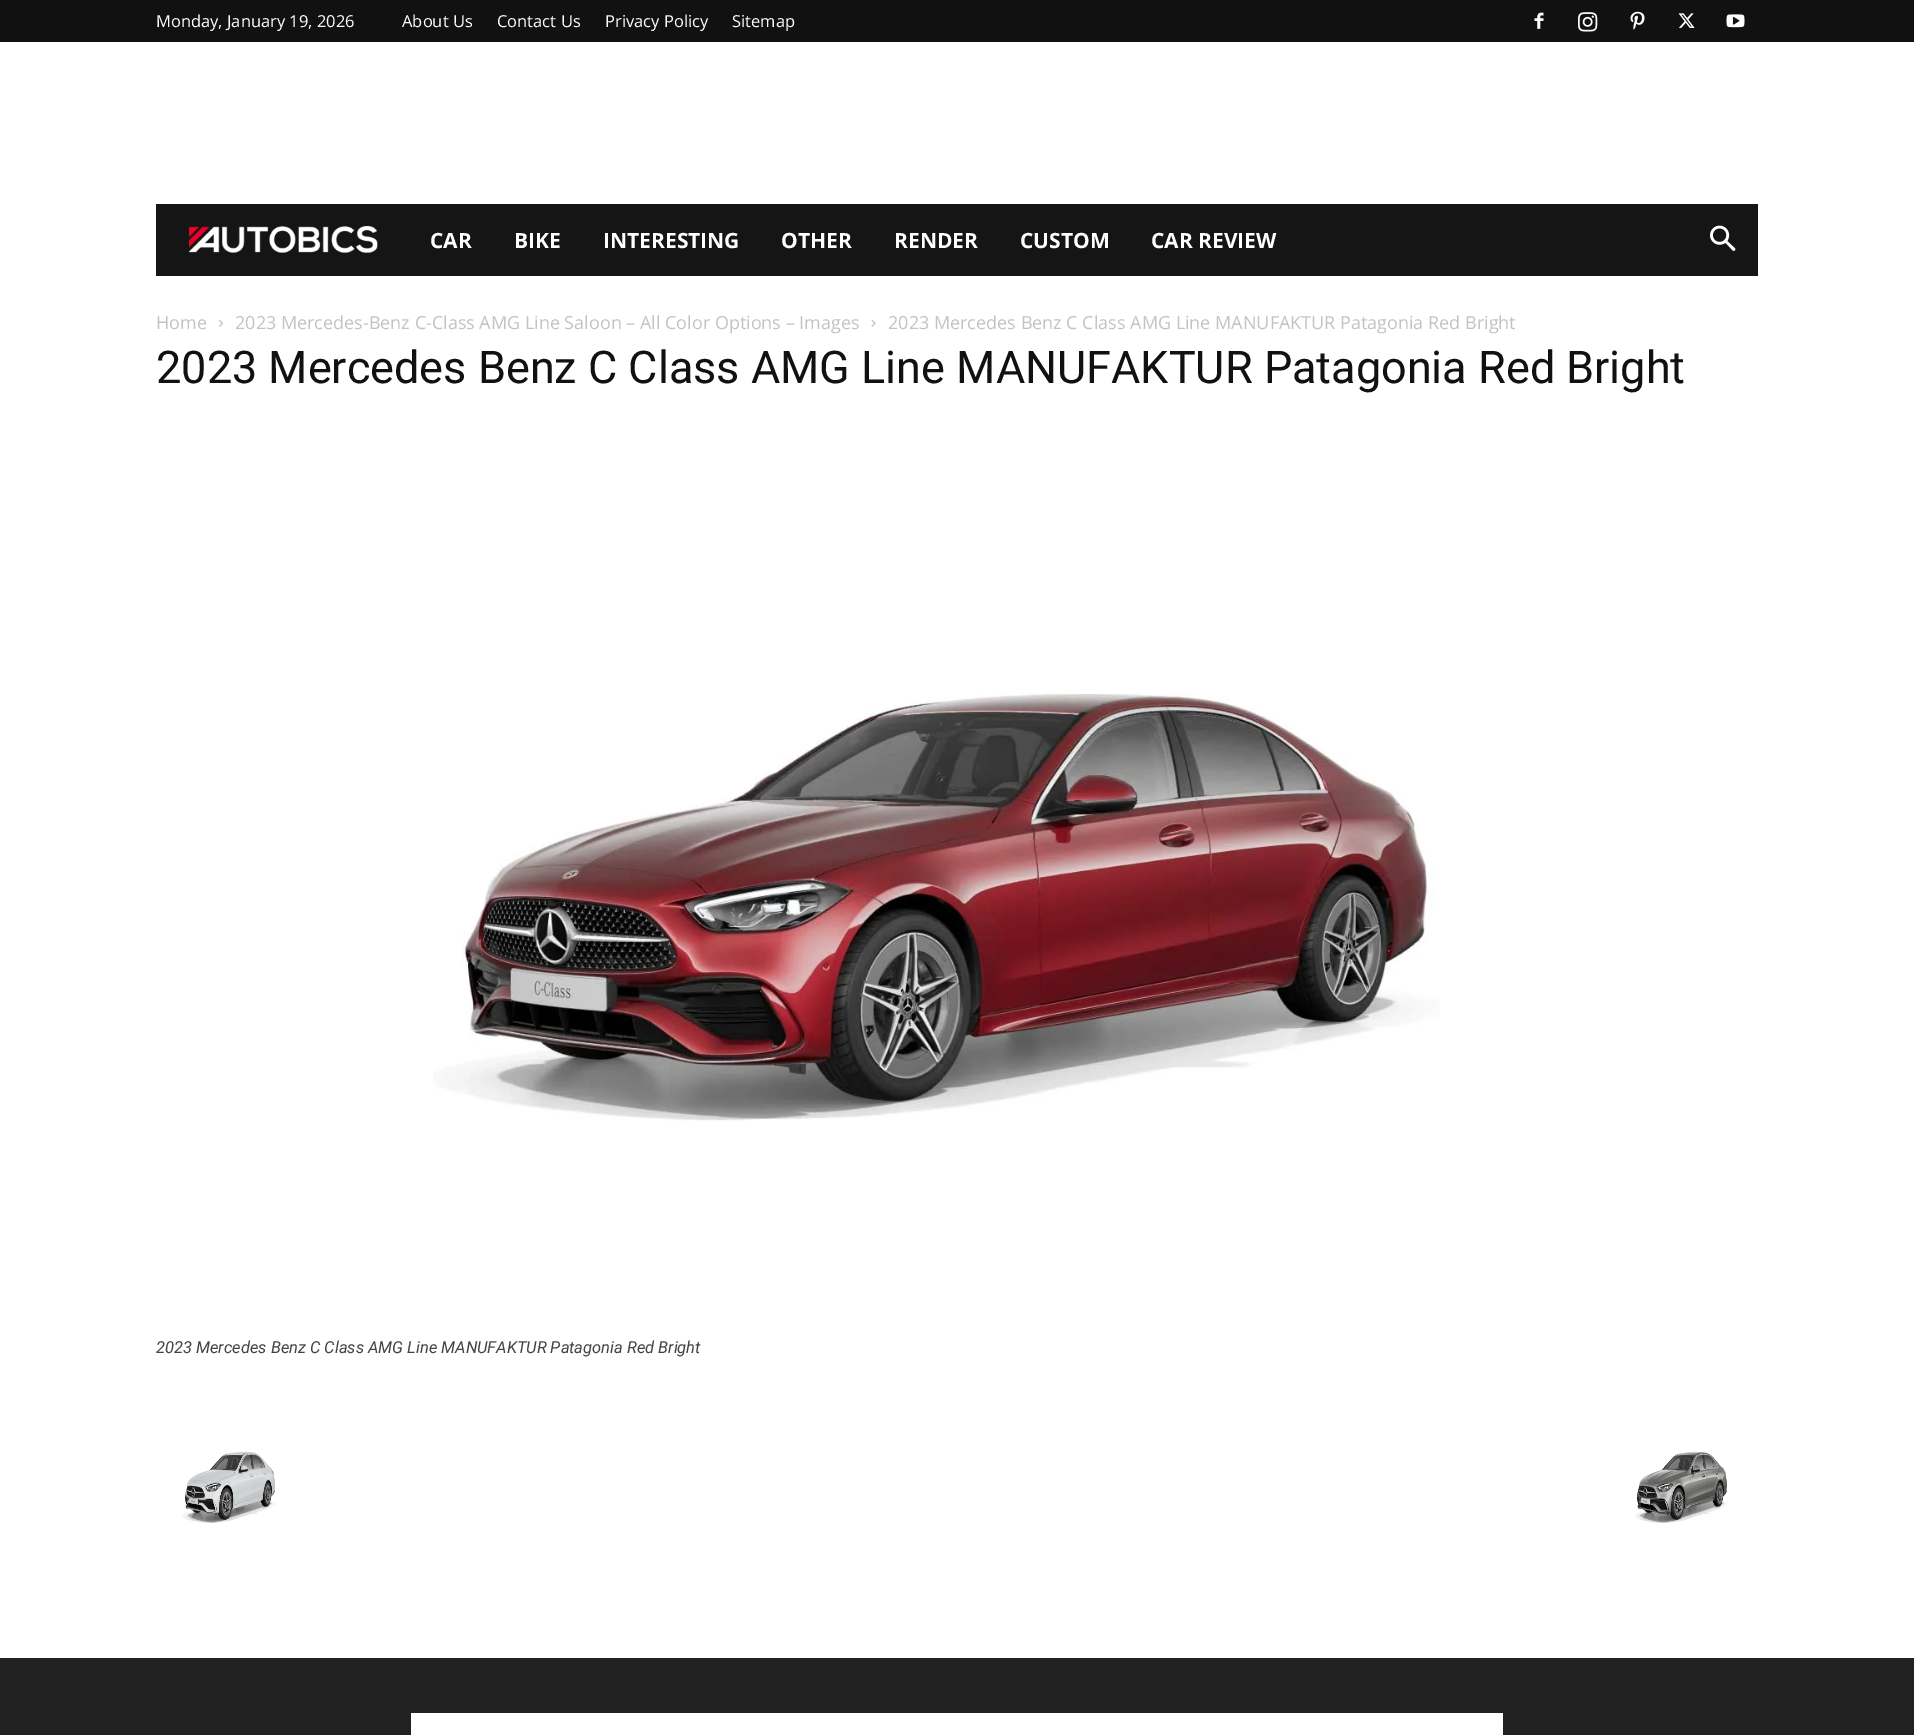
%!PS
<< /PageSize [1914 1735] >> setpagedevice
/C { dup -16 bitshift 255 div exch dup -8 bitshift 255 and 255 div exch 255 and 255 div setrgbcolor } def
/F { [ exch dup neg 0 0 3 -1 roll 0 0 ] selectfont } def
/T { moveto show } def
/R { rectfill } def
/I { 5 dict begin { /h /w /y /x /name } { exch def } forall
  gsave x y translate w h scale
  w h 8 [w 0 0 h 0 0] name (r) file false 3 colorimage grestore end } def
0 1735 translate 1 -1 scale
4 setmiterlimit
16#FFFFFF C
0 0 1914 1735 R
16#111111 C
0 0 1914 42 R
/OpenSans-Regular 16.5 F
16#FFFFFF C
(Monday, January 19, 2026) 156 27 T
(About Us) 402 27 T
(Contact Us) 497 27 T
(Privacy Policy) 605 27 T
(Sitemap) 732 27 T
(1.rgb) 1534 12 10 17 I
(2.rgb) 1578 12 20 20 I
(3.rgb) 1630 11 15 19 I
(4.rgb) 1678 13 17 15 I
(5.rgb) 1726 14 19 14 I
16#151515 C
156 204 1602 72 R
(6.rgb) 189 226 189 27 I
/OpenSans-Bold 21 F
16#FFFFFF C
(CAR) 430 248 T
(BIKE) 514 248 T
(INTERESTING) 603 248 T
(OTHER) 781 248 T
(RENDER) 894 248 T
(CUSTOM) 1020 248 T
(CAR REVIEW) 1151 248 T
(7.rgb) 1710 225 26 26 I
/OpenSans-Regular 18 F
16#C3C3C3 C
(Home) 156 329 T
(8.rgb) 219 320 4 7 I
(2023 Mercedes-Benz C-Class AMG Line Saloon – All Color Options – Images) 235 329 T
(9.rgb) 871 320 5 7 I
(2023 Mercedes Benz C Class AMG Line MANUFAKTUR Patagonia Red Bright) 888 329 T
/Roboto-Regular 45 F
16#111111 C
(2023 Mercedes Benz C Class AMG Line MANUFAKTUR Patagonia Red Bright) 156 383 T
(10.rgb) 433 692 1007 429 I
/Roboto-Italic 16.5 F
16#444444 C
(2023 Mercedes Benz C Class AMG Line MANUFAKTUR Patagonia Red Bright) 156 1353 T
(11.rgb) 182 1451 94 72 I
(12.rgb) 1634 1451 94 72 I
16#222222 C
0 1658 1914 77 R
16#FFFFFF C
411 1713 1092 22 R
showpage
